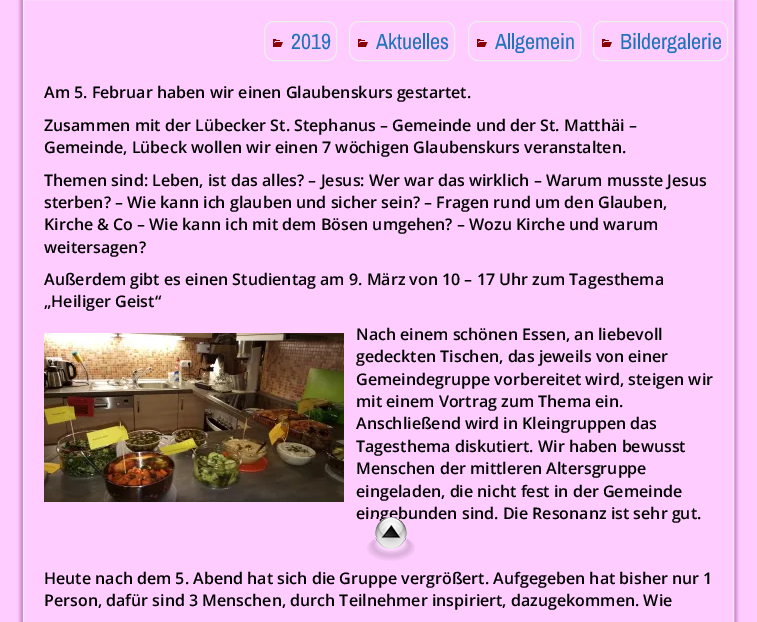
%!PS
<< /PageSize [757 622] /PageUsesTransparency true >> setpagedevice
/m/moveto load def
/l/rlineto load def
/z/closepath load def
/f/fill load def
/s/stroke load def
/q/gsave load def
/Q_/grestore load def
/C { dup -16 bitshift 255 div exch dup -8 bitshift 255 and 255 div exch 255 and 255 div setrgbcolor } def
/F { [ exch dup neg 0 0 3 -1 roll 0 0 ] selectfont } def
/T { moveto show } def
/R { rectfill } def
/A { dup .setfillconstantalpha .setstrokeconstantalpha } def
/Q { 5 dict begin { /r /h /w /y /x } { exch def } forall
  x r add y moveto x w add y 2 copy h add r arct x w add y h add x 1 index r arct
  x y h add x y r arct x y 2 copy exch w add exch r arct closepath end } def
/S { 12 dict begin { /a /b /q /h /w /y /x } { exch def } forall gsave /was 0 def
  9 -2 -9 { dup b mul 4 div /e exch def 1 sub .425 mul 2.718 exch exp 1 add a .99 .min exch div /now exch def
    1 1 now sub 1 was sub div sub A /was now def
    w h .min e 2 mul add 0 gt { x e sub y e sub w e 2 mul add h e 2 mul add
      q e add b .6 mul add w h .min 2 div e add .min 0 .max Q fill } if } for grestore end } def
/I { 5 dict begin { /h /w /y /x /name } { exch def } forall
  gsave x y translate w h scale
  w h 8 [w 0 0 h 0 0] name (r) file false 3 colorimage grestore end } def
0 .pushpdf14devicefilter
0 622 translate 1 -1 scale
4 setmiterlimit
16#FFCCFF C
0 0 757 622 R
16#CC88CC C
20 -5 717 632 0 1.5 1 S
16#FFCCFF C
23.5 -.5 m 710 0 l 0 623 l -710 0 l z q f Q_
16#EEEEEE C
s
264.5 21.5 72 39 9.5 Q s
(1.rgb) 273 39 10 8 I
/ArchivoNarrow-Regular 22 F
16#1E73BE C
(2019) 291 49 T
16#EEEEEE C
349.5 21.5 105 39 9.5 Q s
(1.rgb) 358 39 10 8 I
16#1E73BE C
(Aktuelles) 376 49 T
16#EEEEEE C
468.5 21.5 112 39 9.5 Q s
(1.rgb) 477 39 10 8 I
16#1E73BE C
(Allgemein) 495 49 T
16#EEEEEE C
593.5 21.5 134 39 9.5 Q s
(1.rgb) 602 39 10 8 I
16#1E73BE C
(Bildergalerie) 620 49 T
/OpenSans-SemiBold 16 F
16#000000 C
(Am 5. Februar haben wir einen Glaubenskurs gestartet.) 44 98 T
(Zusammen mit der Lübecker St. Stephanus – Gemeinde und der St. Matthäi –) 44 131 T
(Gemeinde, Lübeck wollen wir einen 7 wöchigen Glaubenskurs veranstalten.) 44 153 T
(Themen sind: Leben, ist das alles? – Jesus: Wer war das wirklich – Warum musste Jesus) 44 186 T
(sterben? – Wie kann ich glauben und sicher sein? – Fragen rund um den Glauben,) 44 208 T
(Kirche & Co – Wie kann ich mit dem Bösen umgehen? – Wozu Kirche und warum) 44 230 T
(weitersagen?) 44 253 T
(Außerdem gibt es einen Studientag am 9. März von 10 – 17 Uhr zum Tagesthema) 44 285 T
(„Heiliger Geist“) 44 307 T
(2.rgb) 44 333 300 169 I
(Nach einem schönen Essen, an liebevoll) 356 340 T
(gedeckten Tischen, das jeweils von einer) 356 362 T
(Gemeindegruppe vorbereitet wird, steigen wir) 356 385 T
(mit einem Vortrag zum Thema ein.) 356 407 T
(Anschließend wird in Kleingruppen das) 356 429 T
(Tagesthema diskutiert. Wir haben bewusst) 356 452 T
(Menschen der mittleren Altersgruppe) 356 474 T
(eingeladen, die nicht fest in der Gemeinde) 356 497 T
(eingebunden sind. Die Resonanz ist sehr gut.) 356 519 T
(Heute nach dem 5. Abend hat sich die Gruppe vergrößert. Aufgegeben hat bisher nur 1) 44 584 T
(Person, dafür sind 3 Menschen, durch Teilnehmer inspiriert, dazugekommen. Wie) 44 606 T
(3.rgb) 367 517 48 44 I
.poppdf14devicefilter showpage
